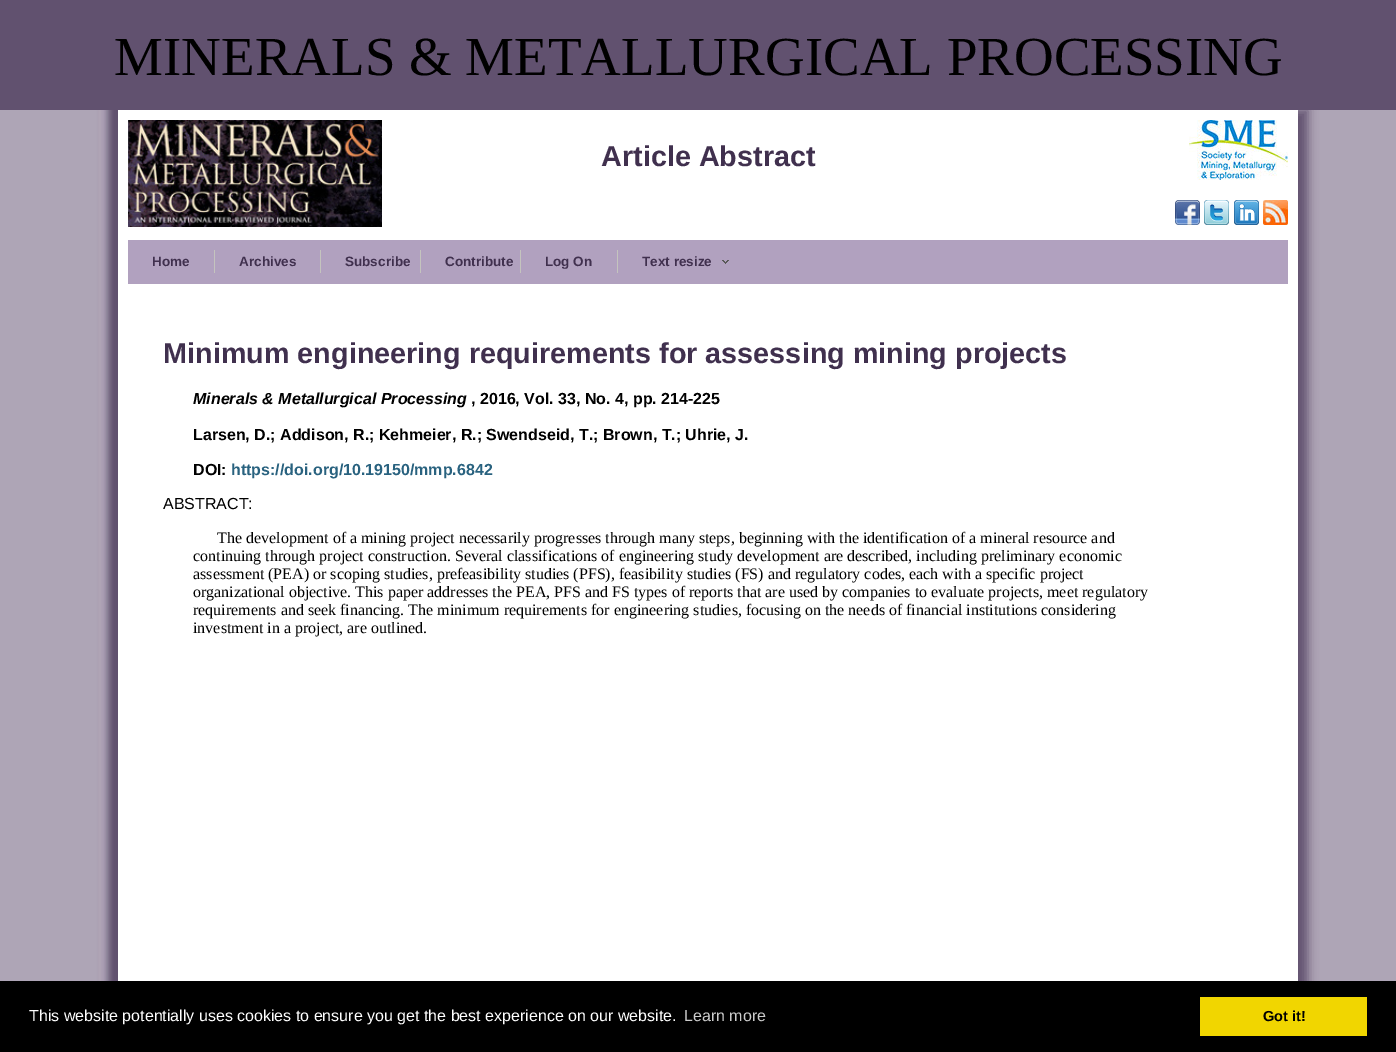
%!PS
<< /PageSize [1396 1052] /PageUsesTransparency true >> setpagedevice
/C { dup -16 bitshift 255 div exch dup -8 bitshift 255 and 255 div exch 255 and 255 div setrgbcolor } def
/F { [ exch dup neg 0 0 3 -1 roll 0 0 ] selectfont } def
/T { moveto show } def
/R { rectfill } def
/A { dup .setfillconstantalpha .setstrokeconstantalpha } def
/Q { 5 dict begin { /r /h /w /y /x } { exch def } forall
  x r add y moveto x w add y 2 copy h add r arct x w add y h add x 1 index r arct
  x y h add x y r arct x y 2 copy exch w add exch r arct closepath end } def
/S { 12 dict begin { /a /b /q /h /w /y /x } { exch def } forall gsave /was 0 def
  9 -2 -9 { dup b mul 4 div /e exch def 1 sub .425 mul 2.718 exch exp 1 add a .99 .min exch div /now exch def
    1 1 now sub 1 was sub div sub A /was now def
    w h .min e 2 mul add 0 gt { x e sub y e sub w e 2 mul add h e 2 mul add
      q e add b .6 mul add w h .min 2 div e add .min 0 .max Q fill } if } for grestore end } def
/I { 5 dict begin { /h /w /y /x /name } { exch def } forall
  gsave x y translate w h scale
  w h 8 [w 0 0 h 0 0] name (r) file false 3 colorimage grestore end } def
0 .pushpdf14devicefilter
0 1052 translate 1 -1 scale
4 setmiterlimit
16#AEA5B6 C
0 0 1396 1052 R
16#61516F C
0 0 1396 110 R
/LiberationSerif-Regular 55 F
16#000000 C
(MINERALS & METALLURGICAL PROCESSING) 114 75 T
16#61516F C
108 110 1200 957 0 5 1 S
16#FFFFFF C
118 110 1180 871 R
(1.rgb) 98 110 20 871 I
(2.rgb) 128 120 254 107 I
/LiberationSans-Bold 28.8 F
16#40304E C
(Article Abstract) 601 166 T
(3.rgb) 1189 120 99 60 I
(4.rgb) 1175 200 25 25 I
(5.rgb) 1204 200 25 25 I
(6.rgb) 1234 200 25 25 I
(7.rgb) 1263 200 25 25 I
16#B1A1BF C
128 240 1160 44 R
/LiberationSans-Bold 13.5 F
16#40304E C
(Home) 152 266 T
16#C4C4BE C
214 250 1 23 R
16#40304E C
(Archives) 239 266 T
16#C4C4BE C
320 250 1 23 R
16#40304E C
(Subscribe) 345 266 T
16#C4C4BE C
420 250 1 23 R
16#40304E C
(Contribute) 445 266 T
16#C4C4BE C
520 250 1 23 R
16#40304E C
(Log On) 545 266 T
16#C4C4BE C
617 250 1 23 R
16#40304E C
(Text resize) 642 266 T
(8.rgb) 722 260 7 4 I
/LiberationSans-Bold 28.8 F
(Minimum engineering requirements for assessing mining projects) 163 363 T
/LiberationSans-BoldItalic 16 F
16#000000 C
(Minerals & Metallurgical Processing) 193 404 T
/LiberationSans-Bold 16 F
(, 2016, Vol. 33, No. 4, pp. 214-225) 471 404 T
(Larsen, D.; Addison, R.; Kehmeier, R.; Swendseid, T.; Brown, T.; Uhrie, J.) 193 440 T
(DOI:) 193 475 T
16#29627F C
(https://doi.org/10.19150/mmp.6842) 231 475 T
/LiberationSans-Regular 16 F
16#000000 C
(ABSTRACT:) 163 509 T
/LiberationSerif-Regular 16 F
(The development of a mining project necessarily progresses through many steps, beginning with the identification of a mineral resource and) 217 543 T
(continuing through project construction. Several classifications of engineering study development are described, including preliminary economic) 193 561 T
(assessment \(PEA\) or scoping studies, prefeasibility studies \(PFS\), feasibility studies \(FS\) and regulatory codes, each with a specific project) 193 579 T
(organizational objective. This paper addresses the PEA, PFS and FS types of reports that are used by companies to evaluate projects, meet regulatory) 193 597 T
(requirements and seek financing. The minimum requirements for engineering studies, focusing on the needs of financial institutions considering) 193 615 T
(investment in a project, are outlined.) 193 633 T
0 981 1396 71 R
/LiberationSans-Regular 16 F
16#FFFFFF C
(This website potentially uses cookies to ensure you get the best experience on our website.) 29 1021 T
16#CCCCCC C
(Learn more) 684 1021 T
16#F1D600 C
1200 997 167 39 R
/LiberationSans-Bold 14.5 F
16#000000 C
(Got it!) 1263 1021 T
.poppdf14devicefilter showpage
